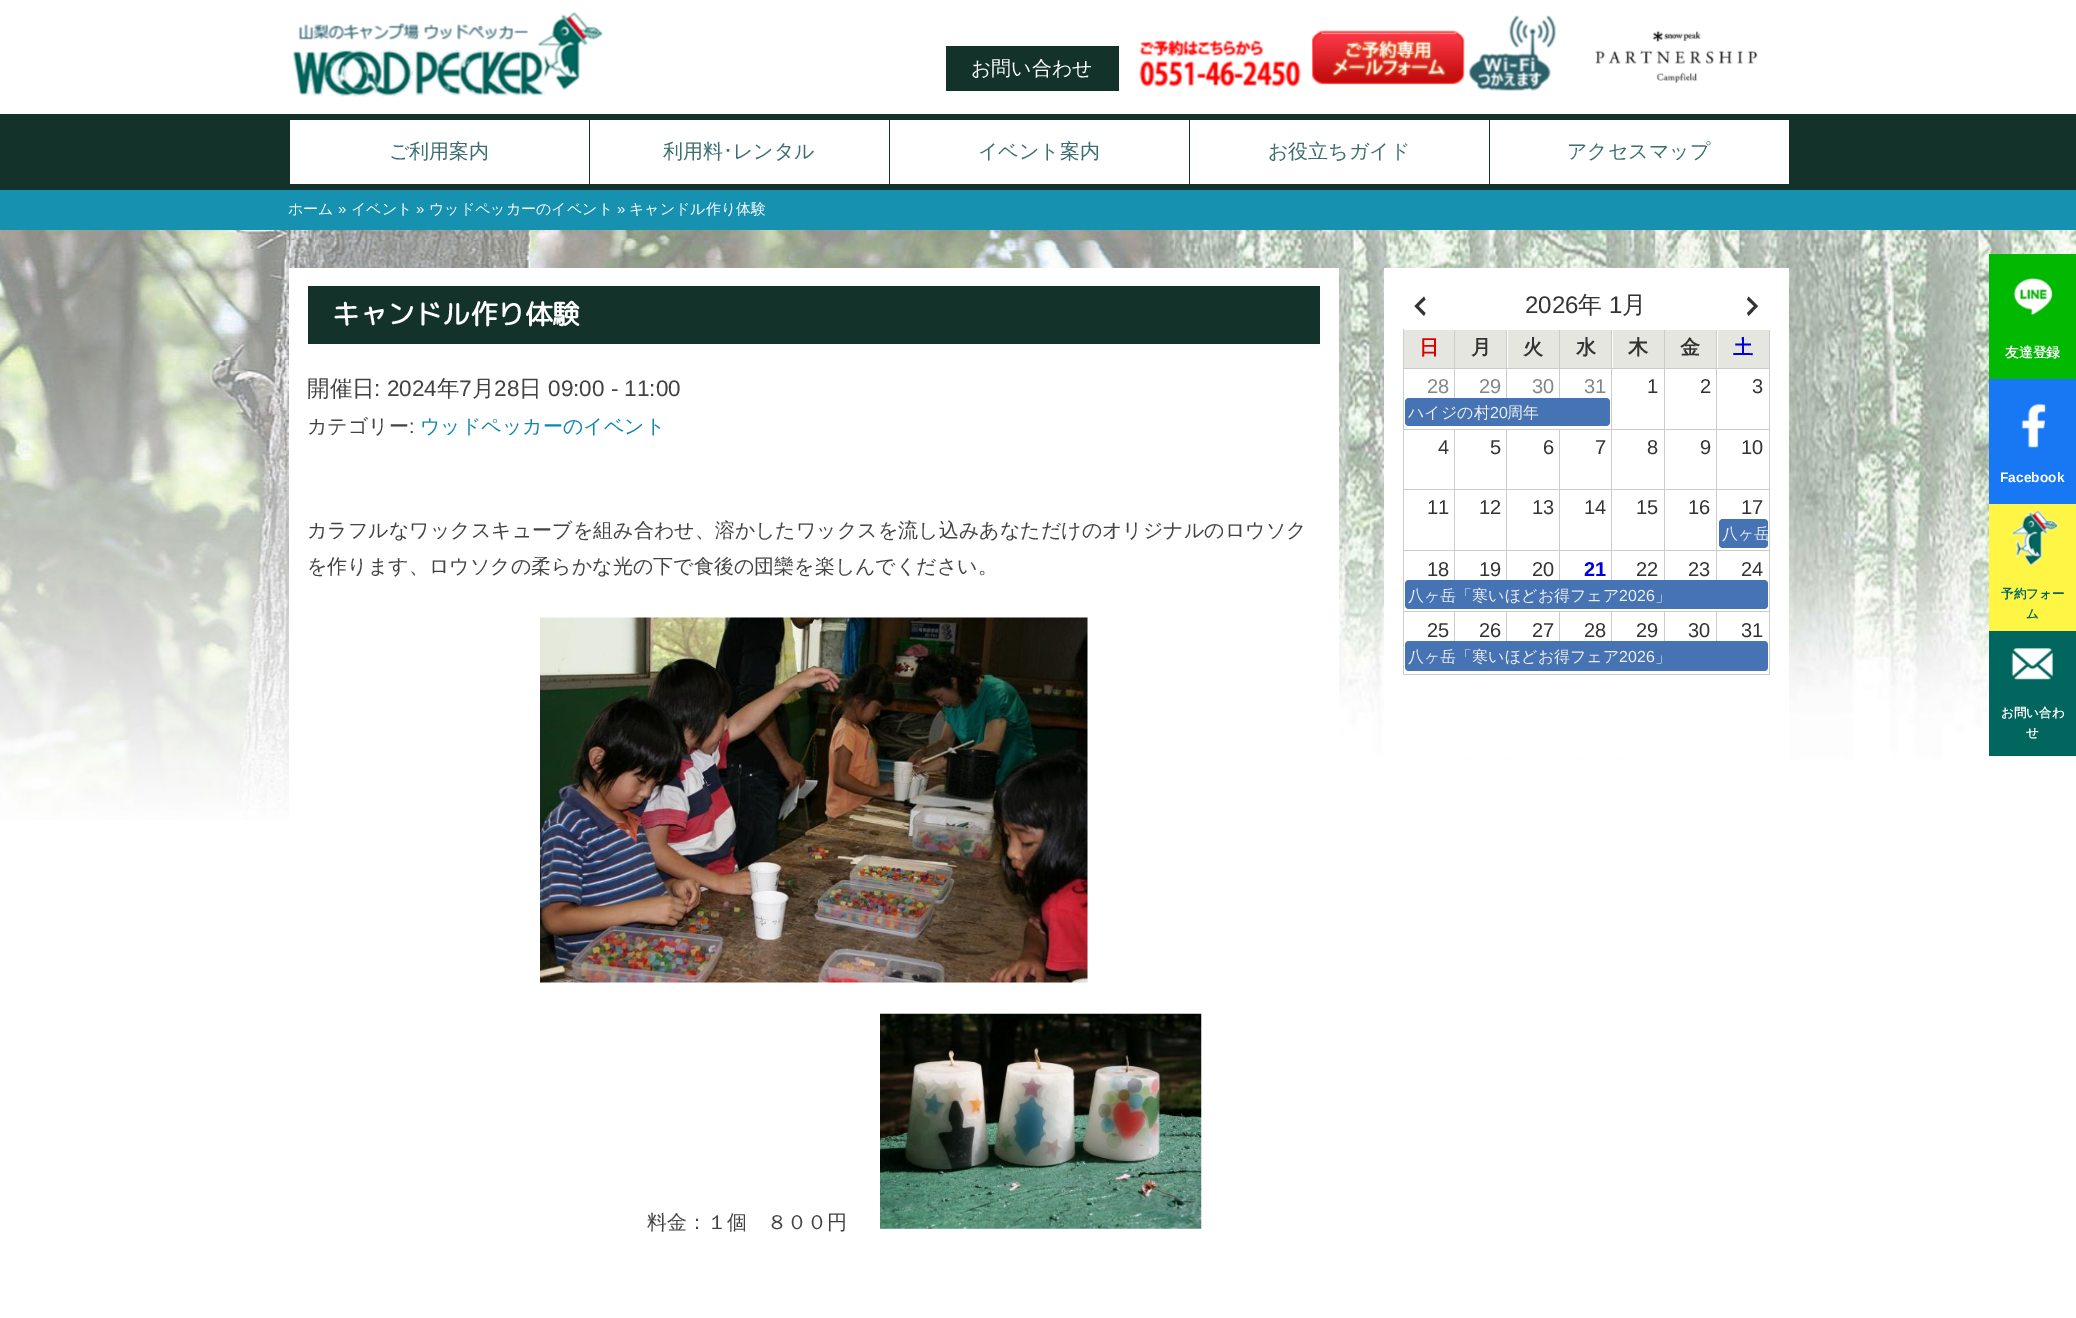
%!PS
<< /PageSize [2076 1318] >> setpagedevice
/m/moveto load def
/l/rlineto load def
/z/closepath load def
/f/fill load def
/q/gsave load def
/Q_/grestore load def
/C { dup -16 bitshift 255 div exch dup -8 bitshift 255 and 255 div exch 255 and 255 div setrgbcolor } def
/F { [ exch dup neg 0 0 3 -1 roll 0 0 ] selectfont } def
/T { moveto show } def
/R { rectfill } def
/Q { 5 dict begin { /r /h /w /y /x } { exch def } forall
  x r add y moveto x w add y 2 copy h add r arct x w add y h add x 1 index r arct
  x y h add x y r arct x y 2 copy exch w add exch r arct closepath end } def
/I { 5 dict begin { /h /w /y /x /name } { exch def } forall
  gsave x y translate w h scale
  w h 8 [w 0 0 h 0 0] name (r) file false 3 colorimage grestore end } def
0 1318 translate 1 -1 scale
4 setmiterlimit
16#FFFFFF C
0 0 2076 1318 R
(1.rgb) 293 11 310 86 I
16#13322A C
946 46 173 45 R
/WenQuanYiZenHei-Medium 20 F
16#FFFFFF C
(お問い合わせ) 971 75 T
(2.rgb) 1139 39 162 48 I
(3.rgb) 1312 30 153 55 I
(4.rgb) 1468 15 88 76 I
(5.rgb) 1595 30 163 53 I
16#13322A C
0 114 2076 76 R
16#FFFFFF C
290 120 299 64 R
16#3C6E71 C
(ご利用案内) 389 158 T
16#FFFFFF C
590 120 299 64 R
16#3C6E71 C
(利用料) 663 158 T
/IPAPGothic-Regular 20 F
(･) 723 158 T
/WenQuanYiZenHei-Medium 20 F
(レンタル) 733 158 T
16#FFFFFF C
890 120 299 64 R
16#3C6E71 C
(イベント案内) 978 158 T
16#FFFFFF C
1190 120 299 64 R
16#3C6E71 C
(お役立ちガイド) 1268 158 T
16#FFFFFF C
1490 120 299 64 R
16#3C6E71 C
(アクセスマップ) 1567 158 T
(10.rgb) 0 230 2076 590 I
16#00B900 C
1989 254 87 125 R
(6.rgb) 2013 277 41 39 I
/WenQuanYiZenHei-Bold 13.75 F
16#FFFFFF C
(友達登録) 2005 357 T
16#1877F2 C
1989 379 87 125 R
(7.rgb) 2021 403 25 45 I
/LiberationSans-Bold 13.75 F
16#FFFFFF C
(Facebook) 2000 482 T
16#FFF544 C
1989 504 87 127 R
(8.rgb) 2010 509 50 58 I
/WenQuanYiZenHei-Bold 12.5 F
16#00665E C
(予約フォー) 2001 598 T
(ム) 2026 618 T
1989 631 87 125 R
(9.rgb) 2011 648 42 32 I
16#FFFFFF C
(お問い合わ) 2001 717 T
(せ) 2026 737 T
16#1692B0 C
0 190 2076 40 R
/WenQuanYiZenHei-Medium 15 F
16#FFFFFF C
(ホーム) 288 214 T
/LiberationSans-Regular 15 F
(») 338 214 T
/WenQuanYiZenHei-Medium 15 F
(イベント) 351 214 T
/LiberationSans-Regular 15 F
(») 416 214 T
/WenQuanYiZenHei-Medium 15 F
(ウッドペッカーのイベント) 429 214 T
/LiberationSans-Regular 15 F
(») 617 214 T
/WenQuanYiZenHei-Medium 15 F
(キャンドル作り体験) 629 214 T
289 268 1050 552 R
16#13322A C
308 286 1012 58 R
/RoundedMplus1c-Bold 27.5 F
16#FFFFFF C
(キャンドル作り体験) 332 324 T
/WenQuanYiZenHei-Medium 22.5 F
16#434343 C
(開催日) 307 396 T
/LiberationSans-Regular 22.5 F
(: 2024) 374 396 T
/WenQuanYiZenHei-Medium 22.5 F
(年) 437 396 T
/LiberationSans-Regular 22.5 F
(7) 459 396 T
/WenQuanYiZenHei-Medium 22.5 F
(月) 472 396 T
/LiberationSans-Regular 22.5 F
(28) 494 396 T
/WenQuanYiZenHei-Medium 22.5 F
(日) 519 396 T
/LiberationSans-Regular 22.5 F
(09:00 - 11:00) 548 396 T
/WenQuanYiZenHei-Medium 20 F
(カテゴリー) 307 433 T
/LiberationSans-Regular 20 F
(:) 409 433 T
/WenQuanYiZenHei-Medium 20 F
16#0E86B2 C
(ウッドペッカーのイベント) 420 433 T
16#434343 C
(カラフルなワックスキューブを組み合わせ、溶かしたワックスを流し込みあなただけのオリジナルのロウソク) 307 537 T
(を作ります、ロウソクの柔らかな光の下で食後の団欒を楽しんでください。) 307 573 T
(11.rgb) 540 617 548 366 I
(料金：１個　８００円) 647 1229 T
(12.rgb) 880 1013 322 216 I
16#FFFFFF C
1384 268 405 491 R
16#CCCCCC C
1403 674 367 1 R
1403 329 1 346 R
16#333333 C
1425.5 299.5 m -7 6.5 l 7 7 l -1.5 3 l -9.5 -10 l 9.5 -9.5 l z f
/LiberationSans-Regular 24 F
(2026) 1525 313 T
/WenQuanYiZenHei-Medium 24 F
(年) 1578 313 T
/LiberationSans-Regular 24 F
(1) 1609 313 T
/WenQuanYiZenHei-Medium 24 F
(月) 1622 313 T
1747 313 m 7 -7 l -7 -6.5 l 1.5 -3 l 9.5 9.5 l -9.5 10 l z f
16#E5E6E0 C
1404 330 50 38 R
16#CCCCCC C
1454 330 1 38 R
/WenQuanYiZenHei-Bold 20 F
16#DD0000 C
(日) 1419 354 T
16#E5E6E0 C
1455 330 51 38 R
16#CCCCCC C
1506 330 1 38 R
16#333333 C
(月) 1471 354 T
16#E5E6E0 C
1508 330 51 38 R
16#CCCCCC C
1559 330 1 38 R
16#333333 C
(火) 1523 354 T
16#E5E6E0 C
1560 330 51 38 R
16#CCCCCC C
1611 330 1 38 R
16#333333 C
(水) 1576 354 T
16#E5E6E0 C
1613 330 51 38 R
16#CCCCCC C
1664 330 1 38 R
16#333333 C
(木) 1628 354 T
16#E5E6E0 C
1665 330 51 38 R
16#CCCCCC C
1716 330 1 38 R
16#333333 C
(金) 1680 354 T
16#E5E6E0 C
1718 330 51 38 R
16#CCCCCC C
1769 330 1 38 R
16#0000DD C
(土) 1733 354 T
16#CCCCCC C
1404 368 366 1 R
1454 368 1 30 R
/LiberationSans-Regular 20 F
16#858585 C
(28) 1427 393 T
16#CCCCCC C
1506 368 1 30 R
16#858585 C
(29) 1479 393 T
16#CCCCCC C
1559 368 1 30 R
16#858585 C
(30) 1532 393 T
16#CCCCCC C
1611 368 1 61 R
16#858585 C
(31) 1584 393 T
16#CCCCCC C
1664 368 1 61 R
16#333333 C
(1) 1647 393 T
16#CCCCCC C
1716 368 1 61 R
16#333333 C
(2) 1700 393 T
16#CCCCCC C
1769 368 1 61 R
16#333333 C
(3) 1752 393 T
16#4573B3 C
1405 398 205 28 4 Q f
/WenQuanYiZenHei-Medium 16 F
16#EEEEEE C
(ハイジの村) 1408 418 T
/LiberationSans-Regular 16 F
(20) 1490 418 T
/WenQuanYiZenHei-Medium 16 F
(周年) 1507 418 T
16#CCCCCC C
1404 429 366 1 R
1454 429 1 60 R
/LiberationSans-Regular 20 F
16#333333 C
(4) 1438 454 T
16#CCCCCC C
1506 429 1 60 R
16#333333 C
(5) 1490 454 T
16#CCCCCC C
1559 429 1 60 R
16#333333 C
(6) 1543 454 T
16#CCCCCC C
1611 429 1 60 R
16#333333 C
(7) 1595 454 T
16#CCCCCC C
1664 429 1 60 R
16#333333 C
(8) 1647 454 T
16#CCCCCC C
1716 429 1 60 R
16#333333 C
(9) 1700 454 T
16#CCCCCC C
1769 429 1 60 R
16#333333 C
(10) 1741 454 T
16#CCCCCC C
1404 489 366 1 R
1454 489 1 61 R
16#333333 C
(11) 1427 514 T
16#CCCCCC C
1506 489 1 61 R
16#333333 C
(12) 1479 514 T
16#CCCCCC C
1559 489 1 61 R
16#333333 C
(13) 1532 514 T
16#CCCCCC C
1611 489 1 61 R
16#333333 C
(14) 1584 514 T
16#CCCCCC C
1664 489 1 61 R
16#333333 C
(15) 1636 514 T
16#CCCCCC C
1716 489 1 61 R
16#333333 C
(16) 1688 514 T
16#CCCCCC C
1769 489 1 61 R
16#333333 C
(17) 1741 514 T
16#4573B3 C
1719 519 49 29 4 Q f
q
1719 519 49 29 4 Q clip newpath
/WenQuanYiZenHei-Medium 16 F
16#EEEEEE C
(八ヶ岳) 1722 539 T
Q_
16#CCCCCC C
1404 550 366 1 R
1454 550 1 30 R
16#333333 C
(18) 1427 576 T
16#CCCCCC C
1506 550 1 30 R
16#333333 C
(19) 1479 576 T
16#CCCCCC C
1559 550 1 30 R
16#333333 C
(20) 1532 576 T
16#CCCCCC C
1611 550 1 30 R
/LiberationSans-Bold 20 F
16#0000DD C
(21) 1584 576 T
16#CCCCCC C
1664 550 1 30 R
/LiberationSans-Regular 20 F
16#333333 C
(22) 1636 576 T
16#CCCCCC C
1716 550 1 30 R
16#333333 C
(23) 1688 576 T
16#CCCCCC C
1769 550 1 61 R
16#333333 C
(24) 1741 576 T
16#4573B3 C
1405 580 363 29 4 Q f
/WenQuanYiZenHei-Medium 16 F
16#EEEEEE C
(八ヶ岳「寒いほどお得フェア) 1408 601 T
/LiberationSans-Regular 16 F
(2026) 1619 601 T
/WenQuanYiZenHei-Medium 16 F
(」) 1655 601 T
16#CCCCCC C
1404 611 366 1 R
1454 611 1 30 R
/LiberationSans-Regular 20 F
16#333333 C
(25) 1427 637 T
16#CCCCCC C
1506 611 1 30 R
16#333333 C
(26) 1479 637 T
16#CCCCCC C
1559 611 1 30 R
16#333333 C
(27) 1532 637 T
16#CCCCCC C
1611 611 1 30 R
16#333333 C
(28) 1584 637 T
16#CCCCCC C
1664 611 1 30 R
16#333333 C
(29) 1636 637 T
16#CCCCCC C
1716 611 1 30 R
16#333333 C
(30) 1688 637 T
16#CCCCCC C
1769 611 1 63 R
16#333333 C
(31) 1741 637 T
16#4573B3 C
1405 641 363 30 4 Q f
/WenQuanYiZenHei-Medium 16 F
16#EEEEEE C
(八ヶ岳「寒いほどお得フェア) 1408 662 T
/LiberationSans-Regular 16 F
(2026) 1619 662 T
/WenQuanYiZenHei-Medium 16 F
(」) 1655 662 T
showpage
